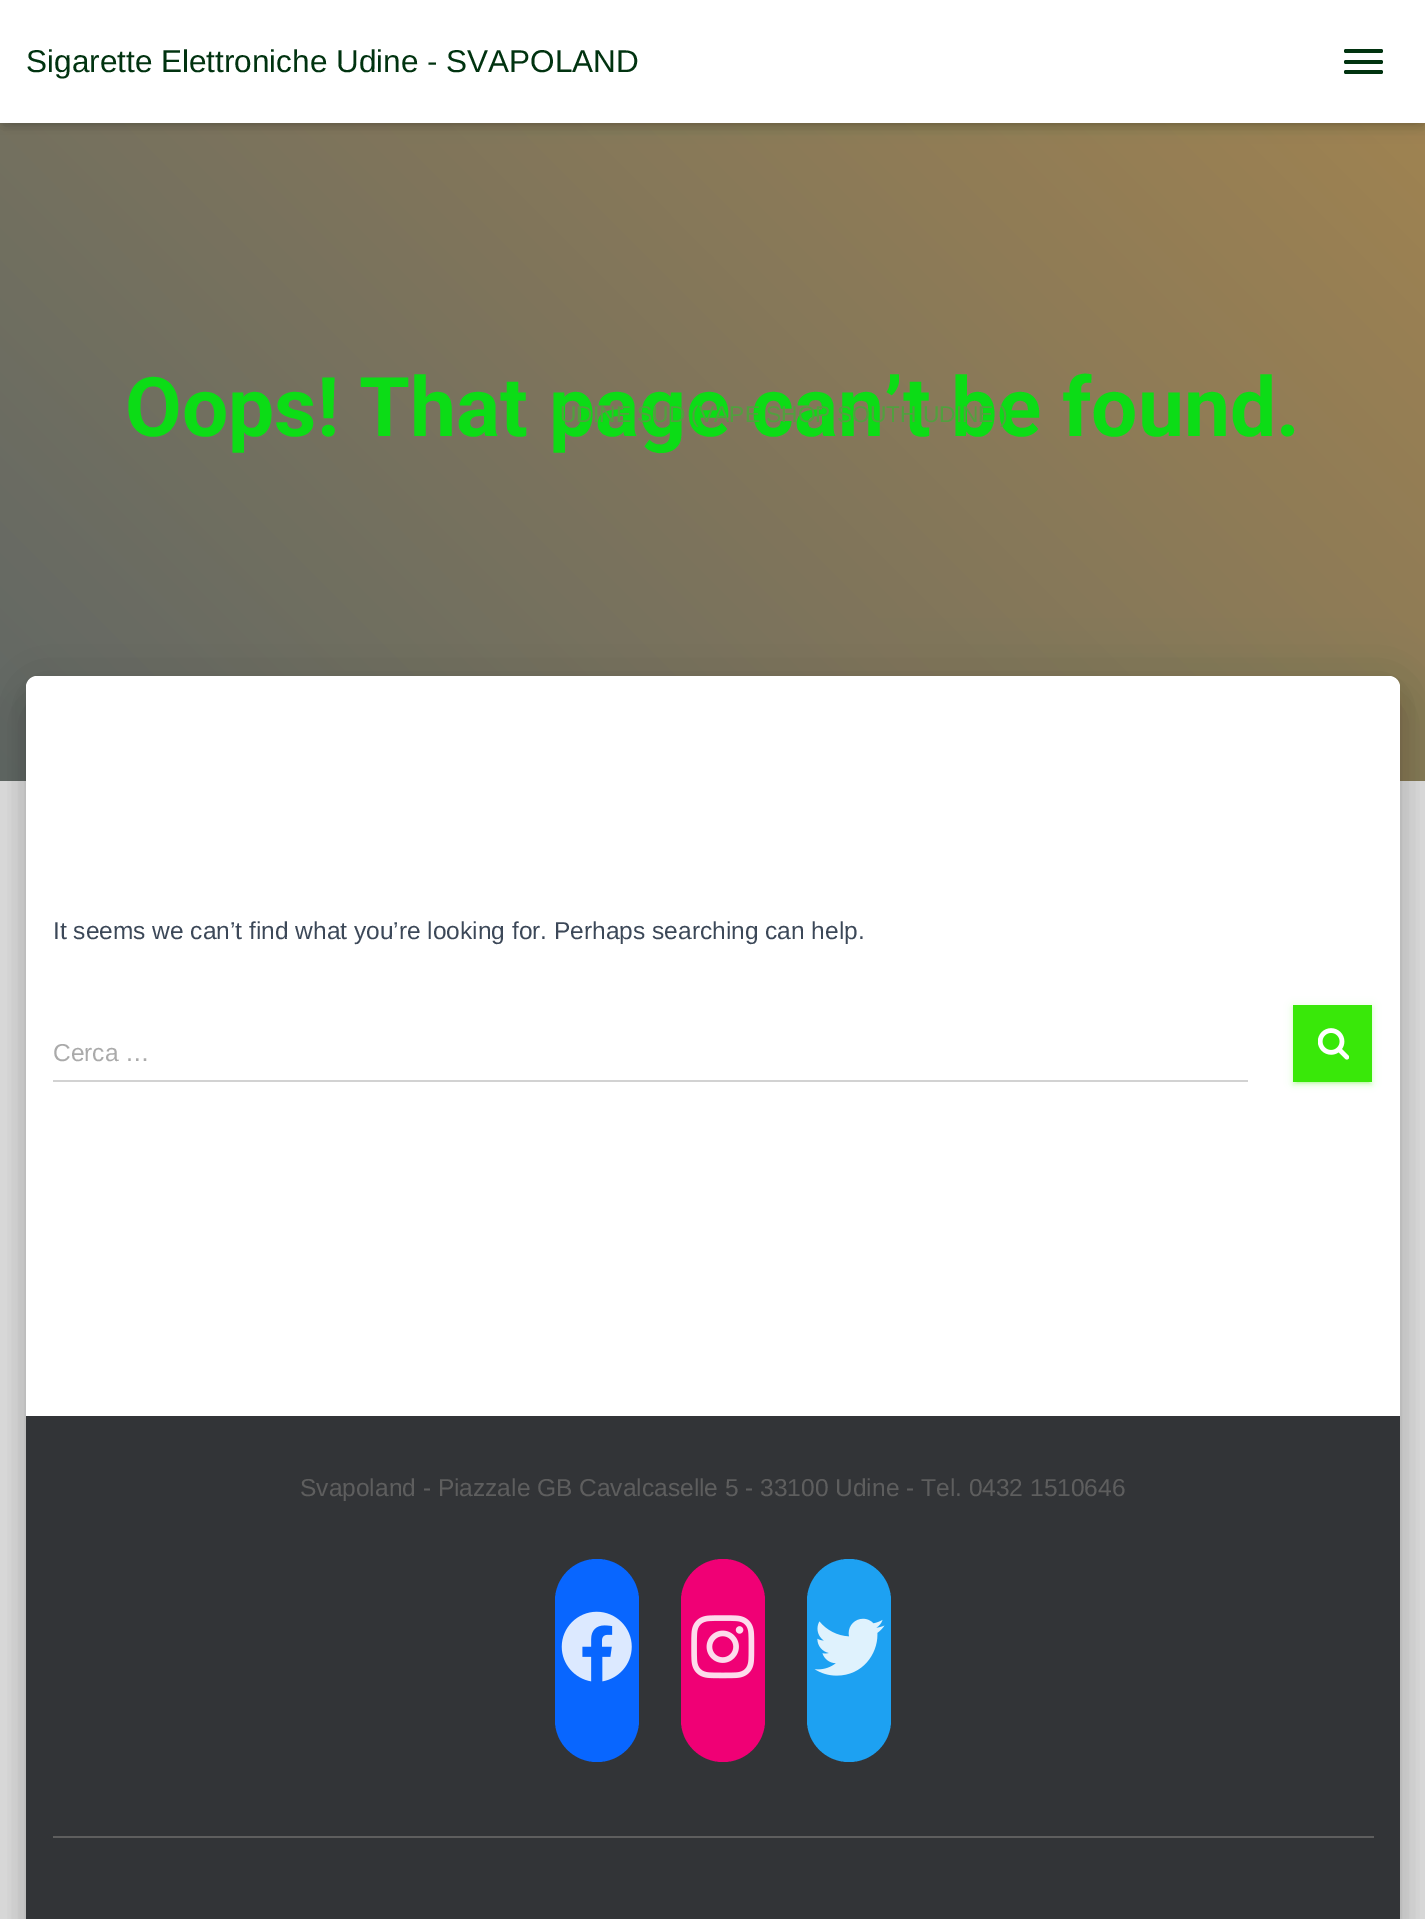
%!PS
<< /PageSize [1425 1919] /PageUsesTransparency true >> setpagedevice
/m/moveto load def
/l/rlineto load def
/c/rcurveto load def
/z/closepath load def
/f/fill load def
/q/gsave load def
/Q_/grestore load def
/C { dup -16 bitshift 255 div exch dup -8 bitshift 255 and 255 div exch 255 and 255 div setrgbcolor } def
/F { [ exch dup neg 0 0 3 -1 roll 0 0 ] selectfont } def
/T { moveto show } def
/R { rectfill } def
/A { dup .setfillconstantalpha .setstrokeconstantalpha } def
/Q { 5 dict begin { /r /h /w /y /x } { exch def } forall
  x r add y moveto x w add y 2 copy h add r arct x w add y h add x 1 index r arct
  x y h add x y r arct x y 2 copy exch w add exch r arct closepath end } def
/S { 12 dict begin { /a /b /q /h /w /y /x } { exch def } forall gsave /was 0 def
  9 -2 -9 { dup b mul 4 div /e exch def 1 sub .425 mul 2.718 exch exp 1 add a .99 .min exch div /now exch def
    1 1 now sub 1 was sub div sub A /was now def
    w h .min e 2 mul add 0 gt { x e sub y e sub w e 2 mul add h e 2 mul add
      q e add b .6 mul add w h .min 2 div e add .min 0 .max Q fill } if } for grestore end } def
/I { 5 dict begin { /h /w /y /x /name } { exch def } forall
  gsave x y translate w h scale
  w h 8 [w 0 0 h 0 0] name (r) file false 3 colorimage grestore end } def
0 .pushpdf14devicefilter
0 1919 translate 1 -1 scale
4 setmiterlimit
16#E5E5E5 C
0 0 1425 1919 R
q 0 123 m 1425 0 l 0 658 l -1425 0 l z clip newpath
<< /ShadingType 2 /ColorSpace /DeviceRGB /Coords [161 942 1265 -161] /Extend [true true] /Function << /FunctionType 2 /Domain [0 1] /C0 [.38 .408 .396] /C1 [.639 .518 .314] /N 1 >> >> shfill Q_
16#000000 C
4 11 1419 115 0 4.5 .1 S
0 2 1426 122 0 9 .12 S
11 12 1405 102 0 9 .42 S
16#FFFFFF C
0 0 1425 123 R
/LiberationSans-Regular 31.5 F
16#013310 C
(Sigarette Elettroniche Udine - SVAPOLAND) 26 72 T
1344 49 39 4 2 Q f
1344 60 39 4 2 Q f
1344 70 39 4 2 Q f
/Roboto-Bold 82.25 F
16#0CDC16 C
(Oops! That page can’t be found.) 125 436 T
/LiberationSans-Regular 22.75 F
16#51A03E C
(UDINE SUD \(VAPE SHOP SOUTH UDINE \)) 560 422 T
16#000000 C
35 698 1356 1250 2 9 .2 S
18 677 1391 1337 19 26 .12 S
23 700 1381 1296 14 21 .14 S
16#FFFFFF C
37 676 m 1352 0 l 6 0 11 5 11 11 c 0 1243 l -1374 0 l 0 -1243 l 0 -6 5 -11 11 -11 c z f
/LiberationSans-Regular 24.5 F
16#3C4858 C
(It seems we can’t find what you’re looking for. Perhaps searching can help.) 53 939 T
16#AAAAAA C
(Cerca …) 53 1061 T
16#D2D2D2 C
53 1080 1195 2 R
16#39E809 C
1293 1006 79 77 0 4.5 .12 S
1297 1013 72 70 0 1 .2 S
1293 1008 79 77 0 2 .14 S
1293 1005 79 77 R
(1.rgb) 1318 1028 31 32 I
16#323437 C
26 1416 1374 503 R
16#5E5E5E C
(Svapoland - Piazzale GB Cavalcaselle 5 - 33100 Udine - Tel. 0432 1510646) 300 1496 T
16#0866FF C
555 1559 84 203 42 Q f
(2.rgb) 561 1611 71 71 I
16#F00075 C
681 1559 84 203 42 Q f
(3.rgb) 691 1615 64 64 I
16#1DA1F2 C
807 1559 84 203 42 Q f
(4.rgb) 814 1618 71 58 I
16#5E5E5E C
53 1836 1321 2 R
.poppdf14devicefilter showpage
